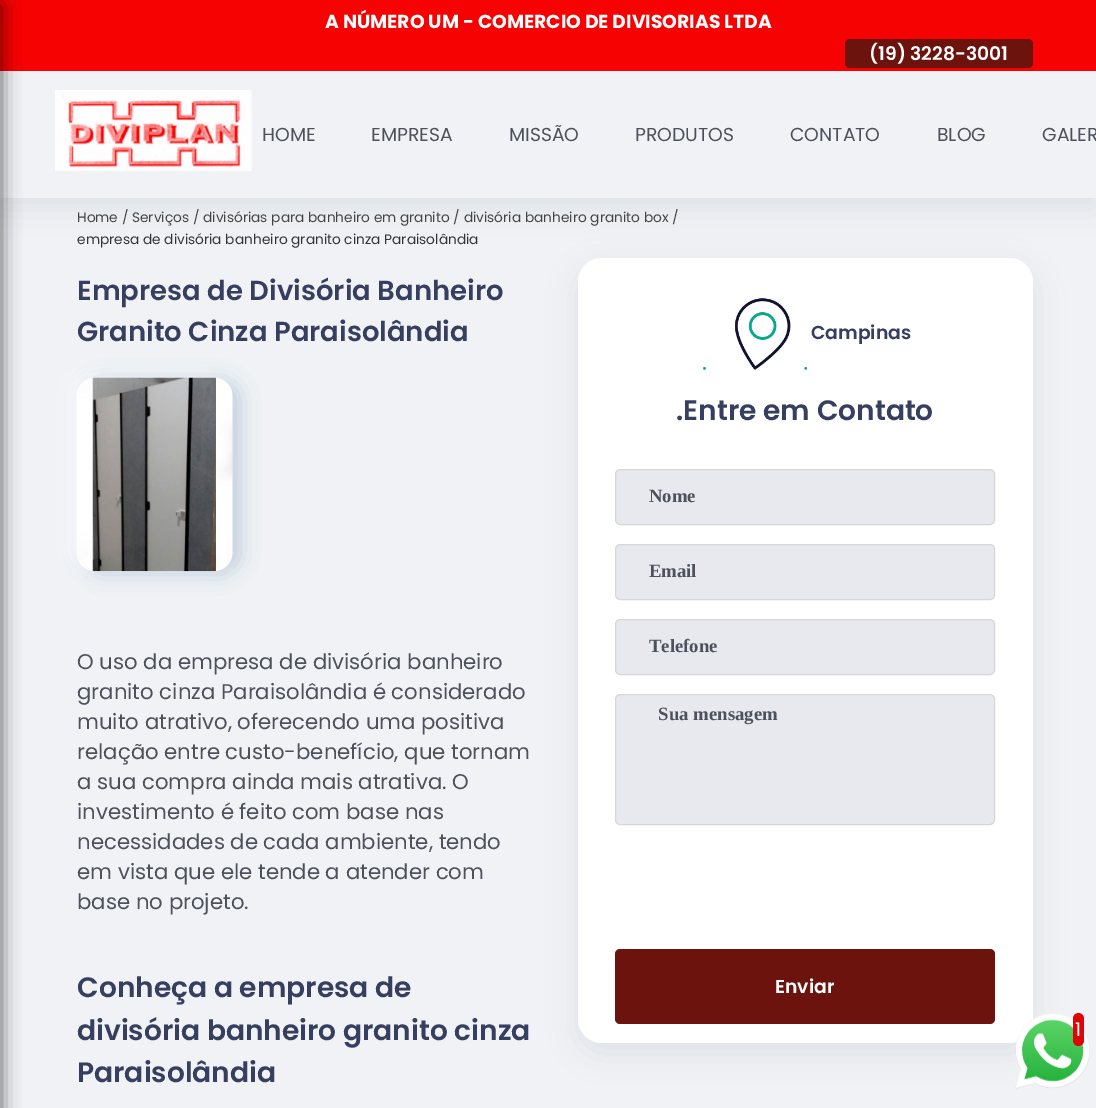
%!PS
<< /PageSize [1096 1108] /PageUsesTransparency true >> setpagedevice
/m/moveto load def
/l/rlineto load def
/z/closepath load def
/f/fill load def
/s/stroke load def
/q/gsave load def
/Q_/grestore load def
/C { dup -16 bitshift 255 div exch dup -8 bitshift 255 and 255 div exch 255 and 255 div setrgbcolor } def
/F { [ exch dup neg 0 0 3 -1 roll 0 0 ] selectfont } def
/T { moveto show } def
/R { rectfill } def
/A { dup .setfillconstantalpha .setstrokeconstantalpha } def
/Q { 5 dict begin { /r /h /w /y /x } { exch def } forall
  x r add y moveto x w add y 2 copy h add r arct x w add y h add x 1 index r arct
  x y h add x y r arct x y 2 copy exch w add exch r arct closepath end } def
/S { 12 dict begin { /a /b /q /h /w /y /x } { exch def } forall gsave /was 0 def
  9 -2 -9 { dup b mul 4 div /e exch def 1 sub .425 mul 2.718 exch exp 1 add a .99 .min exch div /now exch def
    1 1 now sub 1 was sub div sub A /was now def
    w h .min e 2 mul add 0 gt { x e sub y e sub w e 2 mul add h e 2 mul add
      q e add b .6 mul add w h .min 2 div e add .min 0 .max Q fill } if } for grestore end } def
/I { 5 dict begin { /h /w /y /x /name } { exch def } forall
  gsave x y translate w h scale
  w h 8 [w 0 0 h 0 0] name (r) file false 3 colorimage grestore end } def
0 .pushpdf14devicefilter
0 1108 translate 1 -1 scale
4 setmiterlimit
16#F0F2F5 C
0 0 1096 1108 R
q
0 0 m 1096 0 l 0 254 l -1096 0 l z 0 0 m 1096 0 l 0 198 l -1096 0 l z eoclip newpath
16#959DA5 C
0 10 1096 198 0 15 .2 S
Q_
16#F60202 C
0 0 1096 71 R
16#000000 C
-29 5 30 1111 0 9.5 .6 S
/Poppins-Bold 18.75 F
16#FFFFFF C
(A NÚMERO UM - COMERCIO DE DIVISORIAS LTDA) 325 28 T
16#6C130E C
845 39 188 29 5 Q f
/Poppins-SemiBold 18.75 F
16#FFFFFF C
(\(19\) 3228-3001) 869 60 T
(1.rgb) 55 90 197 81 I
/Poppins-Regular 18.75 F
16#4D515C C
(HOME) 262 141 T
(EMPRESA) 371 141 T
(MISSÃO) 509 141 T
(PRODUTOS) 635 141 T
(CONTATO) 790 141 T
(BLOG) 937 141 T
(GALER) 1042 141 T
/Poppins-Regular 13.75 F
16#444444 C
(Home / Serviços / divisórias para banheiro em granito / divisória banheiro granito box /) 77 222 T
16#333333 C
(empresa de divisória banheiro granito cinza Paraisolândia) 77 244 T
/Poppins-SemiBold 27.5 F
16#363F5F C
(Empresa de Divisória Banheiro) 77 300 T
(Granito Cinza Paraisolândia) 77 341 T
16#FFFFFF C
69 375 156 194 19 10 .8 S
16#88A5BF C
84 380 156 194 19 10 .48 S
(2.rgb) 76 377 157 195 I
/Poppins-Regular 21.25 F
16#4D515C C
(O uso da empresa de divisória banheiro) 77 669 T
(granito cinza Paraisolândia é considerado) 77 699 T
(muito atrativo, oferecendo uma positiva) 77 729 T
(relação entre custo-benefício, que tornam) 77 759 T
(a sua compra ainda mais atrativa. O) 77 789 T
(investimento é feito com base nas) 77 819 T
(necessidades de cada ambiente, tendo) 77 849 T
(em vista que ele tende a atender com) 77 879 T
(base no projeto.) 77 909 T
/Poppins-SemiBold 28.1 F
16#363F5F C
(Conheça a empresa de) 77 997 T
(divisória banheiro granito cinza) 77 1040 T
(Paraisolândia) 77 1082 T
16#959DA5 C
578 268 455 785 24 15 .2 S
16#FFFFFF C
578 258 455 785 24 Q f
(3.rgb) 702 298 106 72 I
/Poppins-SemiBold 18.75 F
16#363F5F C
(Campinas) 811 339 T
/Poppins-SemiBold 28.1 F
(.Entre em Contato) 676 420 T
16#E7E9EE C
615.5 469.5 379 55 4.5 Q q f Q_
16#D7D7D7 C
s
/LiberationSerif-Bold 18.75 F
16#4D515C C
( Nome) 644 502 T
16#E7E9EE C
615.5 544.5 379 55 4.5 Q q f Q_
16#D7D7D7 C
s
16#4D515C C
( Email) 644 577 T
16#E7E9EE C
615.5 619.5 379 55 4.5 Q q f Q_
16#D7D7D7 C
s
16#4D515C C
( Telefone) 644 652 T
16#E7E9EE C
615.5 694.5 379 130 4.5 Q q f Q_
16#D7D7D7 C
s
16#4D515C C
(  Sua mensagem) 649 720 T
16#6C130E C
615 949 380 75 5 Q f
/Poppins-SemiBold 18.75 F
16#FFFFFF C
(Enviar) 775 993 T
(4.rgb) 1015 1013 75 76 I
16#DD0505 C
1073 1013 11 33 5.5 Q f
/Poppins-Regular 18.75 F
16#FFFFFF C
(1) 1075 1036 T
.poppdf14devicefilter showpage
